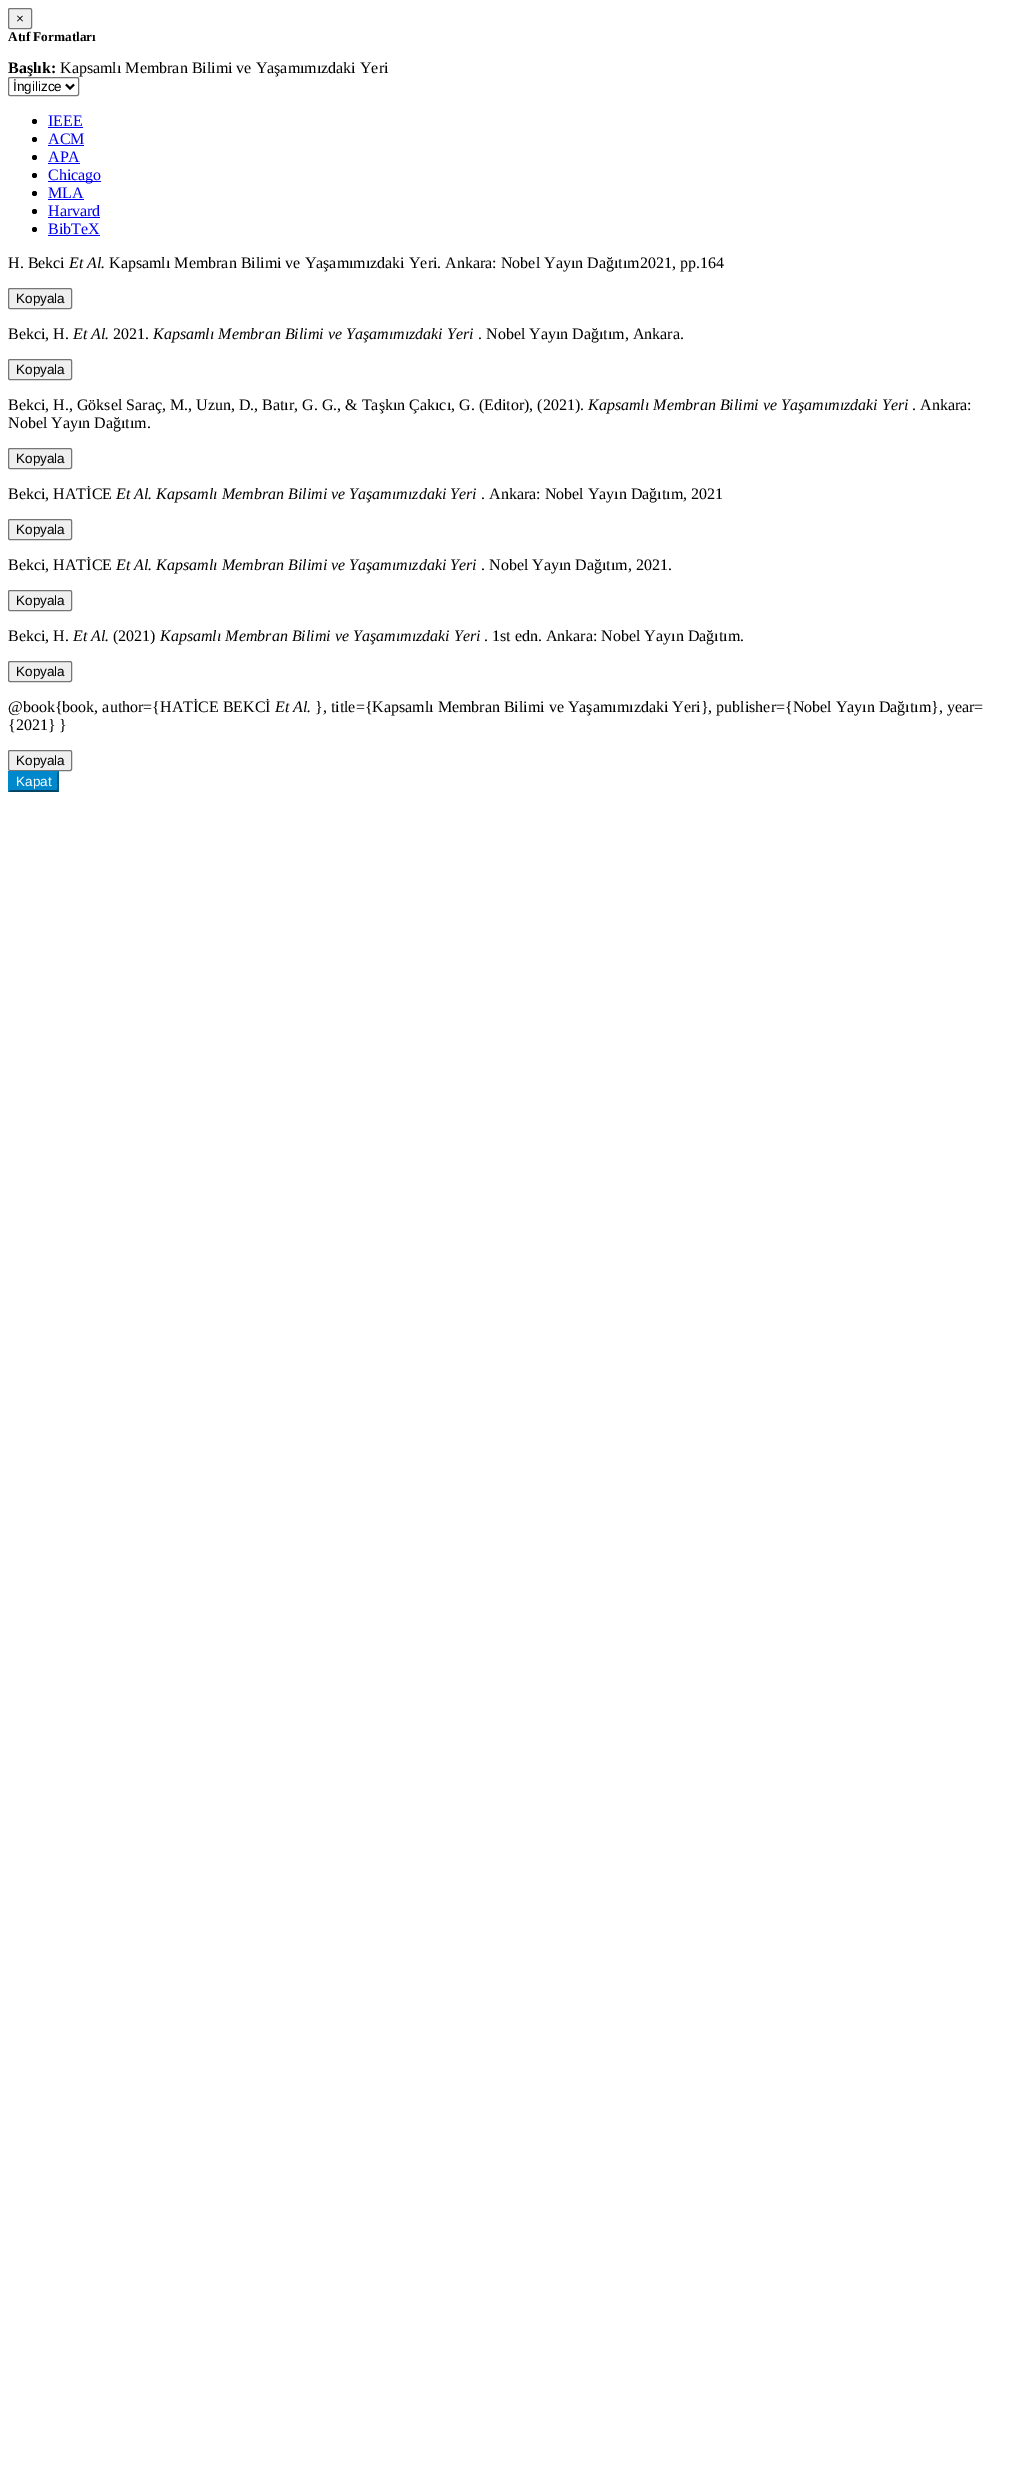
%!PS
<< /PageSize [1021 2486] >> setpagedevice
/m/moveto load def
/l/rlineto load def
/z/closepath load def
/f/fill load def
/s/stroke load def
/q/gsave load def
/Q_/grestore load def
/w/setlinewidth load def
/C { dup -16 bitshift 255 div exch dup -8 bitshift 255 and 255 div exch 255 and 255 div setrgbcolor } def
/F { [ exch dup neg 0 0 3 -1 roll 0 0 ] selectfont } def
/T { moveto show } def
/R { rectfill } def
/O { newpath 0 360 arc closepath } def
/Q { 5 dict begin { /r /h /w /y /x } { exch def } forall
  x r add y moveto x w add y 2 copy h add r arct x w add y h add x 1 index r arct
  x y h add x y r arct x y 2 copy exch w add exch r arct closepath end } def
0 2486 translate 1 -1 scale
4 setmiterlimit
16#FFFFFF C
0 0 1021 2486 R
16#EFEFEF C
8.5 8.5 23 20 1.5 Q q f Q_
16#767676 C
s
/LiberationSans-Regular 13.5 F
16#000000 C
(×) 16 23 T
/LiberationSerif-Bold 13.25 F
(Atıf Formatları) 8 41 T
/LiberationSerif-Bold 16 F
(Başlık:) 8 73 T
/LiberationSerif-Regular 16 F
(Kapsamlı Membran Bilimi ve Yaşamımızdaki Yeri) 60 73 T
16#767676 C
8.5 77.5 70 18 1.5 Q s
16#000000 C
2 w
66 84.5 m 4 4 l 4 -4 l s
/LiberationSans-Regular 13.5 F
(İngilizce) 13 91 T
34.5 121.5 2.5 O f
/LiberationSerif-Regular 16 F
16#0000EE C
(IEEE) 48 126 T
48 127 35 1 R
16#000000 C
34.5 139.5 2.5 O f
16#0000EE C
(ACM) 48 144 T
48 145 36 1 R
16#000000 C
34.5 157.5 2.5 O f
16#0000EE C
(APA) 48 162 T
48 163 32 1 R
16#000000 C
34.5 175.5 2.5 O f
16#0000EE C
48 181 53 1 R
(Chicago) 48 180 T
16#000000 C
34.5 193.5 2.5 O f
16#0000EE C
(MLA) 48 198 T
48 199 36 1 R
16#000000 C
34.5 211.5 2.5 O f
16#0000EE C
(Harvard) 48 216 T
48 217 52 1 R
16#000000 C
34.5 229.5 2.5 O f
16#0000EE C
(BibTeX) 48 234 T
48 235 52 1 R
16#000000 C
(H. Bekci) 8 268 T
/LiberationSerif-Italic 16 F
(Et Al.) 69 268 T
/LiberationSerif-Regular 16 F
(Kapsamlı Membran Bilimi ve Yaşamımızdaki Yeri. Ankara: Nobel Yayın Dağıtım2021, pp.164) 109 268 T
16#EFEFEF C
8.5 288.5 63 20 1.5 Q q f Q_
16#767676 C
1 w
s
/LiberationSans-Regular 13.5 F
16#000000 C
(Kopyala) 16 303 T
/LiberationSerif-Regular 16 F
(Bekci, H.) 8 339 T
/LiberationSerif-Italic 16 F
(Et Al.) 73 339 T
/LiberationSerif-Regular 16 F
(2021.) 113 339 T
/LiberationSerif-Italic 16 F
(Kapsamlı Membran Bilimi ve Yaşamımızdaki Yeri) 153 339 T
/LiberationSerif-Regular 16 F
(. Nobel Yayın Dağıtım, Ankara.) 478 339 T
16#EFEFEF C
8.5 359.5 63 20 1.5 Q q f Q_
16#767676 C
s
/LiberationSans-Regular 13.5 F
16#000000 C
(Kopyala) 16 374 T
/LiberationSerif-Regular 16 F
(Bekci, H., Göksel Saraç, M., Uzun, D., Batır, G. G., & Taşkın Çakıcı, G. \(Editor\), \(2021\).) 8 410 T
/LiberationSerif-Italic 16 F
(Kapsamlı Membran Bilimi ve Yaşamımızdaki Yeri) 588 410 T
/LiberationSerif-Regular 16 F
(. Ankara:) 912 410 T
(Nobel Yayın Dağıtım.) 8 428 T
16#EFEFEF C
8.5 448.5 63 20 1.5 Q q f Q_
16#767676 C
s
/LiberationSans-Regular 13.5 F
16#000000 C
(Kopyala) 16 463 T
/LiberationSerif-Regular 16 F
(Bekci, HATİCE) 8 499 T
/LiberationSerif-Italic 16 F
(Et Al. Kapsamlı Membran Bilimi ve Yaşamımızdaki Yeri) 116 499 T
/LiberationSerif-Regular 16 F
(. Ankara: Nobel Yayın Dağıtım, 2021) 481 499 T
16#EFEFEF C
8.5 519.5 63 20 1.5 Q q f Q_
16#767676 C
s
/LiberationSans-Regular 13.5 F
16#000000 C
(Kopyala) 16 534 T
/LiberationSerif-Regular 16 F
(Bekci, HATİCE) 8 570 T
/LiberationSerif-Italic 16 F
(Et Al. Kapsamlı Membran Bilimi ve Yaşamımızdaki Yeri) 116 570 T
/LiberationSerif-Regular 16 F
(. Nobel Yayın Dağıtım, 2021.) 481 570 T
16#EFEFEF C
8.5 590.5 63 20 1.5 Q q f Q_
16#767676 C
s
/LiberationSans-Regular 13.5 F
16#000000 C
(Kopyala) 16 605 T
/LiberationSerif-Regular 16 F
(Bekci, H.) 8 641 T
/LiberationSerif-Italic 16 F
(Et Al.) 73 641 T
/LiberationSerif-Regular 16 F
(\(2021\)) 113 641 T
/LiberationSerif-Italic 16 F
(Kapsamlı Membran Bilimi ve Yaşamımızdaki Yeri) 160 641 T
/LiberationSerif-Regular 16 F
(. 1st edn. Ankara: Nobel Yayın Dağıtım.) 484 641 T
16#EFEFEF C
8.5 661.5 63 20 1.5 Q q f Q_
16#767676 C
s
/LiberationSans-Regular 13.5 F
16#000000 C
(Kopyala) 16 676 T
/LiberationSerif-Regular 16 F
(@book{book, author={HATİCE BEKCİ) 8 712 T
/LiberationSerif-Italic 16 F
(Et Al.) 275 712 T
/LiberationSerif-Regular 16 F
(}, title={Kapsamlı Membran Bilimi ve Yaşamımızdaki Yeri}, publisher={Nobel Yayın Dağıtım}, year=) 315 712 T
({2021} }) 8 730 T
16#EFEFEF C
8.5 750.5 63 20 1.5 Q q f Q_
16#767676 C
s
/LiberationSans-Regular 13.5 F
16#000000 C
(Kopyala) 16 765 T
16#0088CC C
8 771 51 21 R
16#005B88 C
59 771 m 0 21 l -2 -2 l 0 -17 l z f
16#004466 C
59 792 m -51 0 l 2 -2 l 47 0 l z f
16#0088CC C
8 792 m 0 -21 l 2 2 l 0 17 l z f
16#FFFFFF C
(Kapat) 16 786 T
showpage
